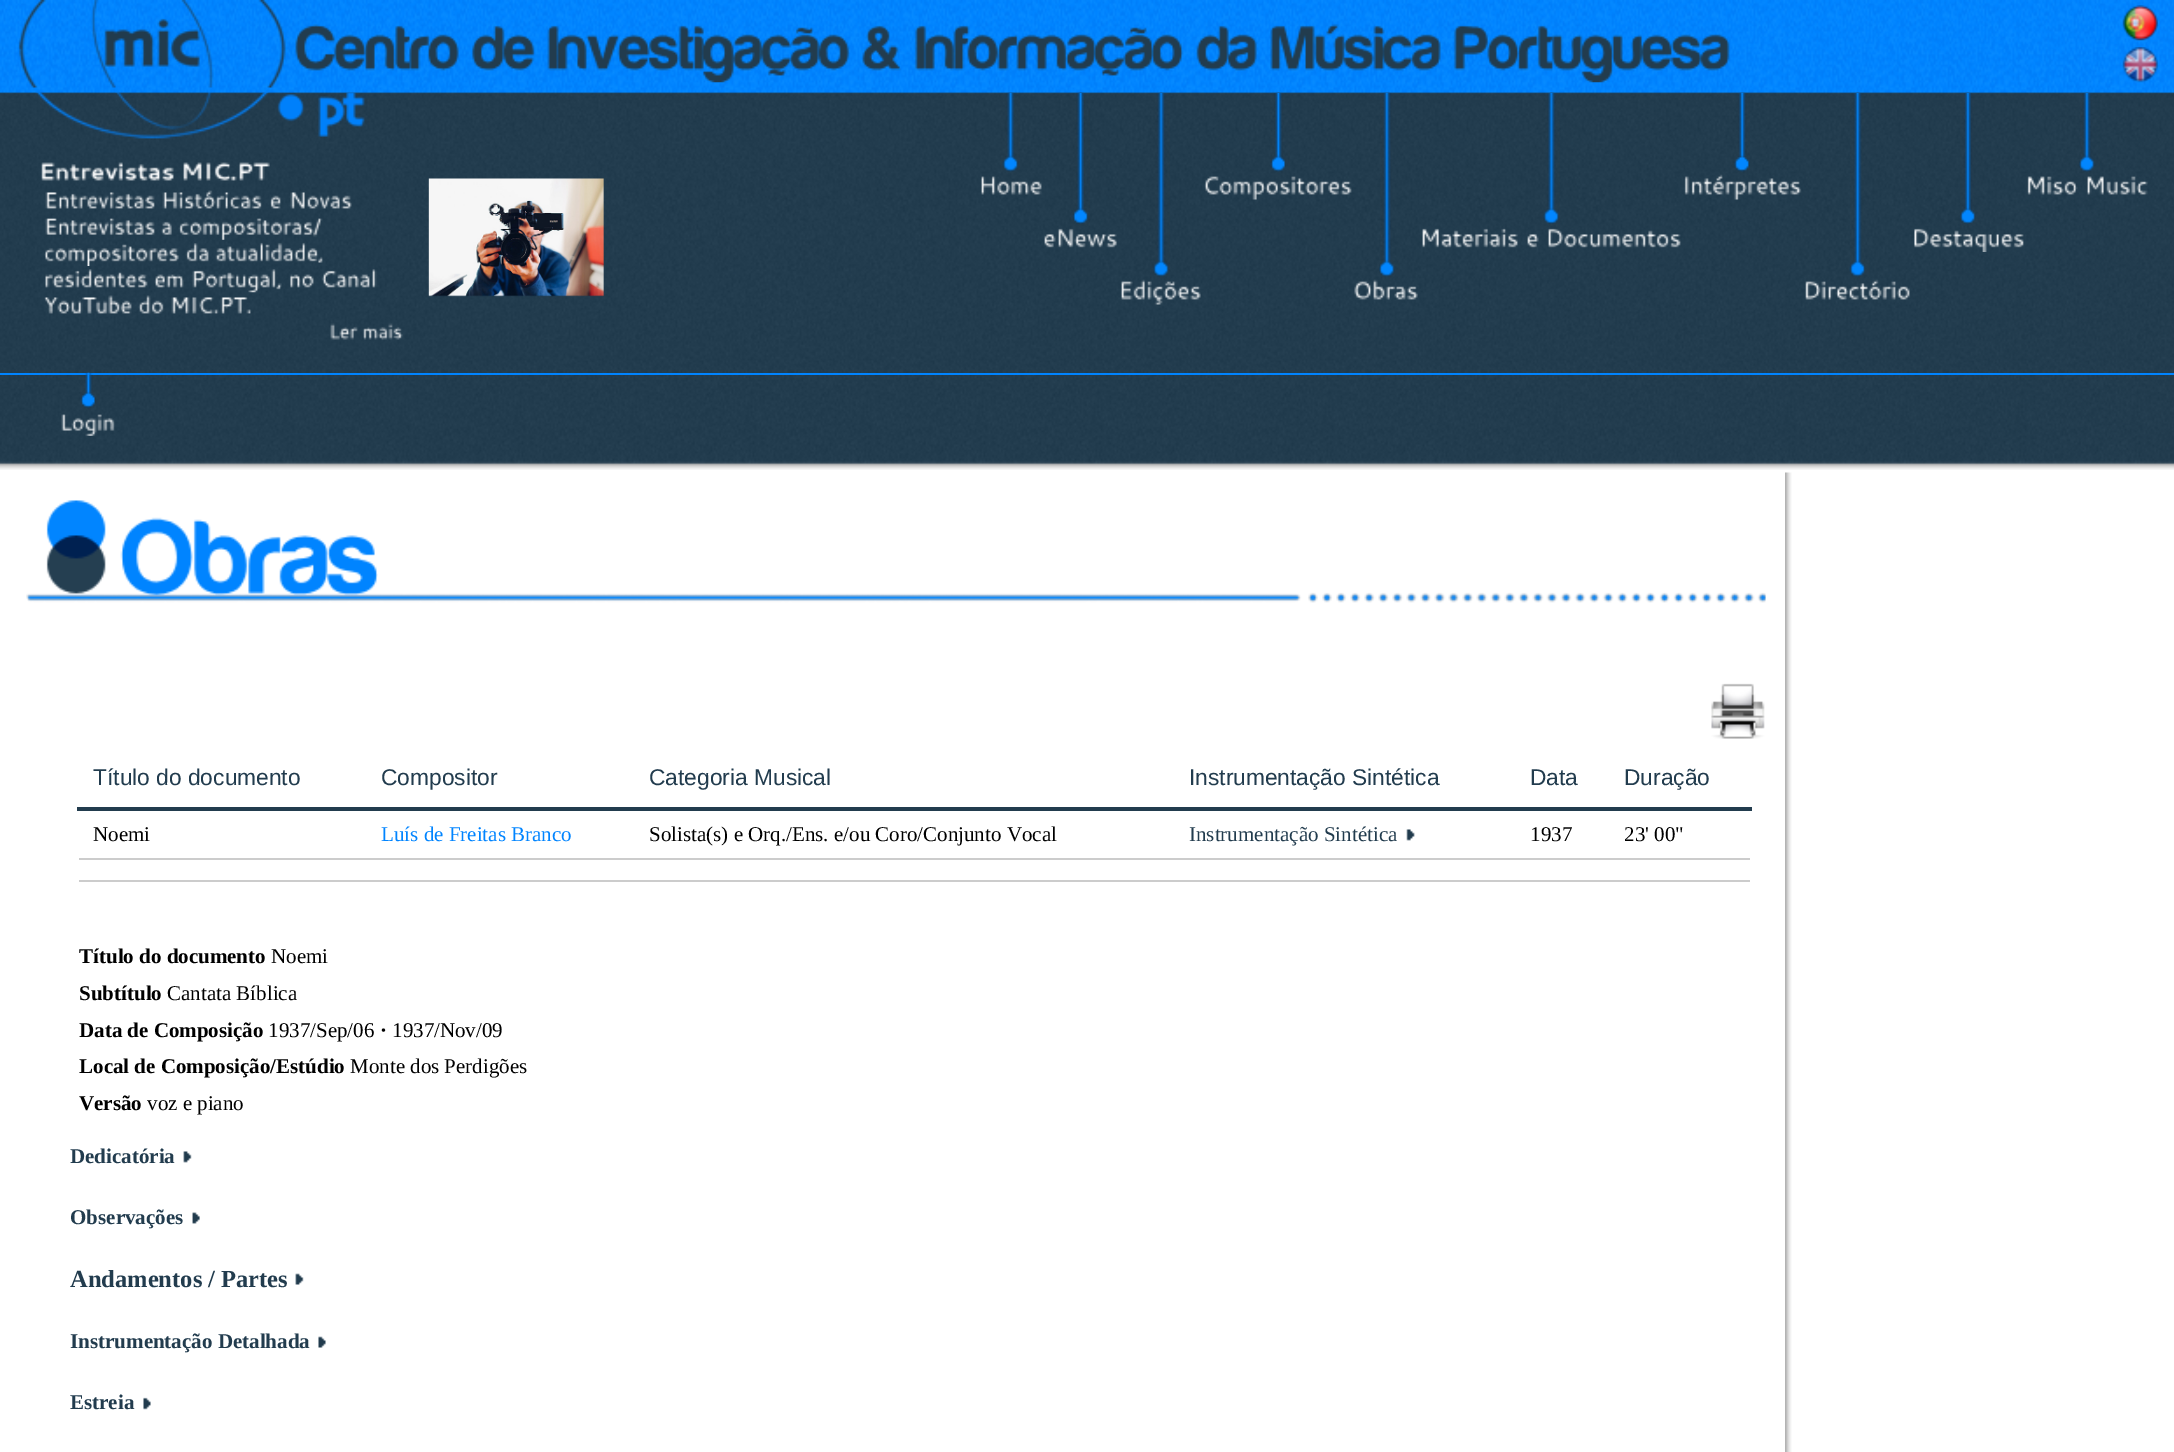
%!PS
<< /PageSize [2174 1452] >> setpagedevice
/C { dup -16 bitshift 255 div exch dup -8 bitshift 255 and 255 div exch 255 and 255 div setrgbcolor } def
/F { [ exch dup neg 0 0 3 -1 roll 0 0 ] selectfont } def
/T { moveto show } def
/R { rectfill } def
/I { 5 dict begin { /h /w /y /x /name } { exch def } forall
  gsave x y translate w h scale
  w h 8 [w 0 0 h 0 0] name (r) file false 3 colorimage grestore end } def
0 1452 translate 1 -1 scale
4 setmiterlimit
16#FFFFFF C
0 0 2174 1452 R
(1.rgb) 0 0 2174 470 I
(2.rgb) 18 0 347 139 I
(3.rgb) 41 162 133 19 I
(4.rgb) 183 162 87 19 I
(5.rgb) 45 192 110 17 I
(6.rgb) 162 190 100 19 I
(7.rgb) 270 195 11 14 I
(8.rgb) 290 192 62 17 I
(9.rgb) 45 218 110 17 I
(10.rgb) 161 221 11 14 I
(11.rgb) 178 218 145 22 I
(12.rgb) 44 244 135 22 I
(13.rgb) 185 243 24 19 I
(14.rgb) 215 242 108 21 I
(15.rgb) 45 269 103 19 I
(16.rgb) 154 274 30 14 I
(17.rgb) 192 269 90 24 I
(18.rgb) 290 274 24 14 I
(19.rgb) 321 269 56 19 I
(20.rgb) 44 295 88 19 I
(21.rgb) 138 295 26 19 I
(22.rgb) 171 297 80 17 I
(23.rgb) 330 323 28 17 I
(24.rgb) 363 323 40 17 I
(25.rgb) 428 178 176 119 I
(26.rgb) 1002 92 16 80 I
(27.rgb) 981 176 61 19 I
(28.rgb) 1072 93 16 131 I
(29.rgb) 1044 228 73 20 I
(30.rgb) 1153 93 16 184 I
(31.rgb) 1121 279 80 26 I
(32.rgb) 1270 93 16 79 I
(33.rgb) 1204 176 148 24 I
(34.rgb) 1379 92 16 185 I
(35.rgb) 1354 279 64 21 I
(36.rgb) 1543 93 16 131 I
(37.rgb) 1422 228 96 20 I
(38.rgb) 1527 234 12 14 I
(39.rgb) 1548 228 133 20 I
(40.rgb) 1734 92 16 80 I
(41.rgb) 1684 174 118 26 I
(42.rgb) 1849 93 16 184 I
(43.rgb) 1805 279 105 21 I
(44.rgb) 1960 93 16 131 I
(45.rgb) 1914 228 110 24 I
(46.rgb) 2079 93 16 79 I
(47.rgb) 2027 176 51 19 I
(48.rgb) 2087 176 61 19 I
(49.rgb) 295 24 164 47 I
(50.rgb) 472 25 63 46 I
(51.rgb) 547 25 303 58 I
(52.rgb) 862 25 40 46 I
(53.rgb) 914 25 270 51 I
(54.rgb) 1196 25 61 46 I
(55.rgb) 1270 24 171 47 I
(56.rgb) 1453 25 277 58 I
(57.rgb) 2122 5 36 36 I
(58.rgb) 2122 47 36 36 I
16#0084FF C
0 373 2174 2 R
(59.rgb) 80 372 16 36 I
(60.rgb) 61 414 54 22 I
(61.rgb) 1785 472 7 980 I
(62.rgb) 26 500 1740 103 I
(63.rgb) 120 517 258 79 I
(64.rgb) 1711 683 54 56 I
/LiberationSans-Regular 22.75 F
16#223C4E C
(Título do documento) 93 785 T
(Compositor) 381 785 T
(Categoria Musical) 649 785 T
(Instrumentação Sintética) 1189 785 T
(Data) 1530 785 T
77 807 1675 4 R
(Duração) 1624 785 T
/LiberationSerif-Regular 21 F
16#000000 C
(Noemi) 93 841 T
16#0084FF C
(Luís de Freitas Branco) 381 841 T
16#000000 C
(Solista\(s\) e Orq./Ens. e/ou Coro/Conjunto Vocal) 649 841 T
(65.rgb) 1406 829 9 12 I
16#223C4E C
(Instrumentação Sintética) 1189 841 T
16#000000 C
(1937) 1530 841 T
16#CCCCCC C
79 858 1671 2 R
16#000000 C
(23' 00") 1624 841 T
16#CCCCCC C
79 880 1671 2 R
/LiberationSerif-Bold 21 F
16#000000 C
(Título do documento) 79 963 T
/LiberationSerif-Regular 21 F
(Noemi) 271 963 T
/LiberationSerif-Bold 21 F
(Subtítulo) 79 1000 T
/LiberationSerif-Regular 21 F
(Cantata Bíblica) 167 1000 T
/LiberationSerif-Bold 21 F
(Data de Composição) 79 1037 T
/LiberationSerif-Regular 21 F
(1937/Sep/06) 268 1037 T
/LiberationSerif-Bold 21 F
(·) 380 1037 T
/LiberationSerif-Regular 21 F
(1937/Nov/09) 392 1037 T
/LiberationSerif-Bold 21 F
(Local de Composição/Estúdio) 79 1073 T
/LiberationSerif-Regular 21 F
(Monte dos Perdigões) 350 1073 T
/LiberationSerif-Bold 21 F
(Versão) 79 1110 T
/LiberationSerif-Regular 21 F
(voz e piano) 147 1110 T
(66.rgb) 183 1151 9 12 I
/LiberationSerif-Bold 21 F
16#223C4E C
(Dedicatória) 70 1163 T
(67.rgb) 192 1212 8 12 I
(Observações) 70 1224 T
(68.rgb) 295 1273 9 12 I
/LiberationSerif-Bold 24.5 F
(Andamentos / Partes) 70 1287 T
(69.rgb) 318 1336 8 12 I
/LiberationSerif-Bold 21 F
(Instrumentação Detalhada) 70 1348 T
(70.rgb) 143 1397 8 13 I
(Estreia) 70 1409 T
showpage
